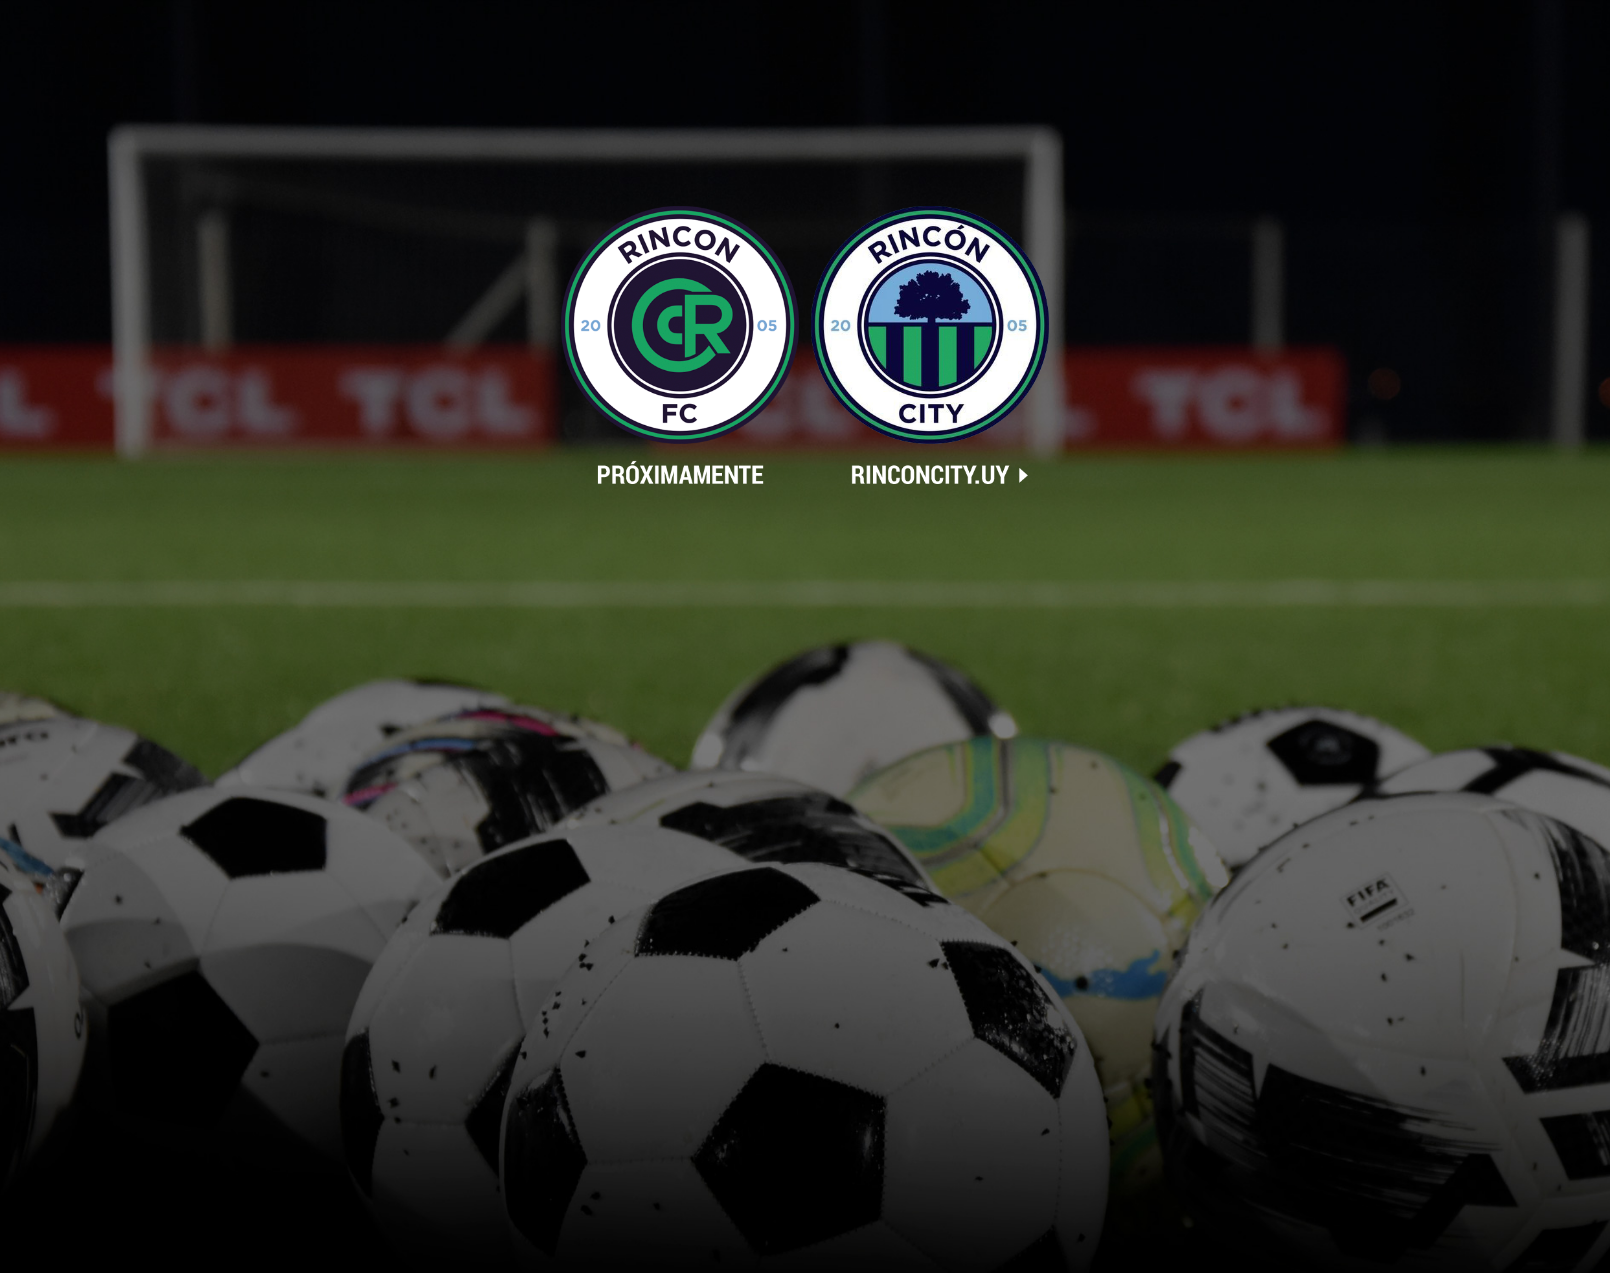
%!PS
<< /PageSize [1610 1273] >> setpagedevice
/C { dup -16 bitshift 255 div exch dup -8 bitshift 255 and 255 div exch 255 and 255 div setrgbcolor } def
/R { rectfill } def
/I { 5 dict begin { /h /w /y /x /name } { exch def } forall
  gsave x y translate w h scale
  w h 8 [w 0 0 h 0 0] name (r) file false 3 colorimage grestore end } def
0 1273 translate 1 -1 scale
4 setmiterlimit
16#FFFFFF C
0 0 1610 1273 R
(1.rgb) 0 0 1610 1273 I
(2.rgb) 561 206 238 278 I
(3.rgb) 811 206 238 278 I
showpage
